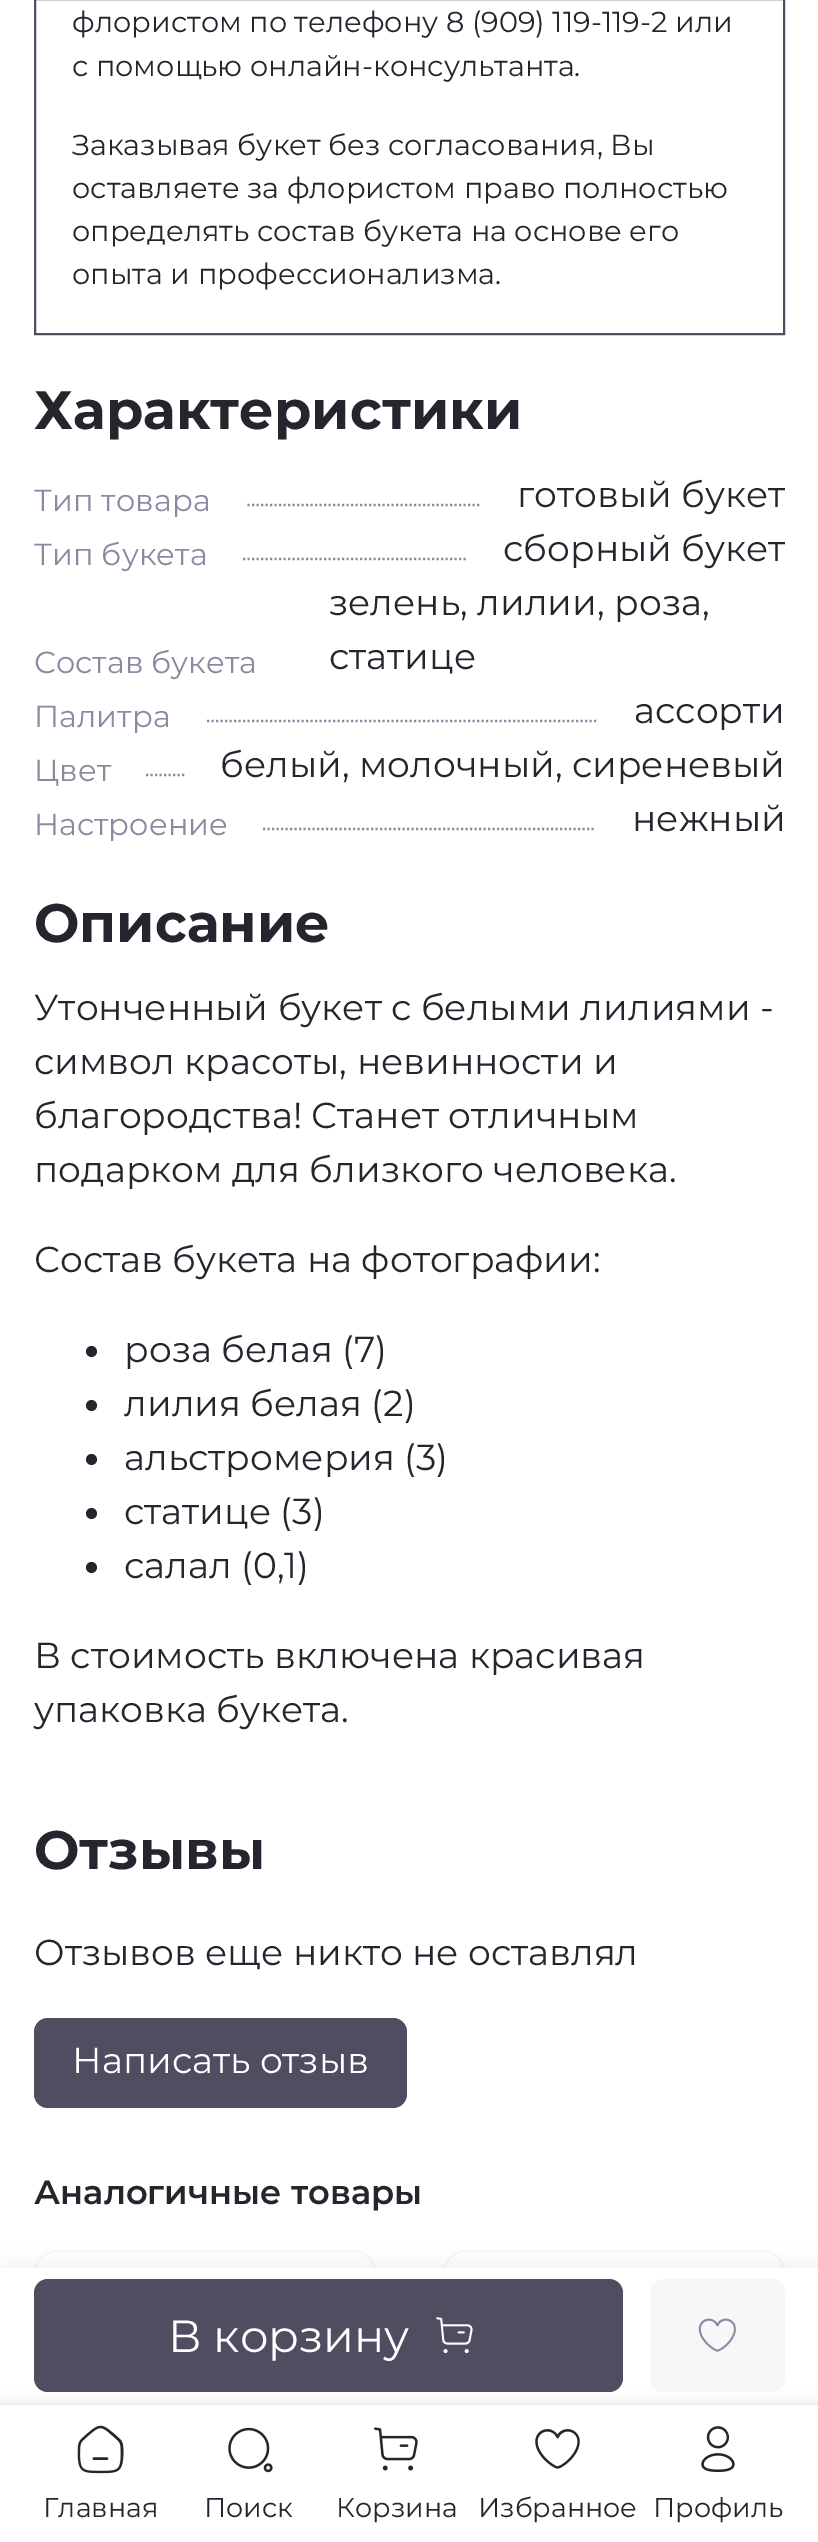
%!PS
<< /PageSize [818 2542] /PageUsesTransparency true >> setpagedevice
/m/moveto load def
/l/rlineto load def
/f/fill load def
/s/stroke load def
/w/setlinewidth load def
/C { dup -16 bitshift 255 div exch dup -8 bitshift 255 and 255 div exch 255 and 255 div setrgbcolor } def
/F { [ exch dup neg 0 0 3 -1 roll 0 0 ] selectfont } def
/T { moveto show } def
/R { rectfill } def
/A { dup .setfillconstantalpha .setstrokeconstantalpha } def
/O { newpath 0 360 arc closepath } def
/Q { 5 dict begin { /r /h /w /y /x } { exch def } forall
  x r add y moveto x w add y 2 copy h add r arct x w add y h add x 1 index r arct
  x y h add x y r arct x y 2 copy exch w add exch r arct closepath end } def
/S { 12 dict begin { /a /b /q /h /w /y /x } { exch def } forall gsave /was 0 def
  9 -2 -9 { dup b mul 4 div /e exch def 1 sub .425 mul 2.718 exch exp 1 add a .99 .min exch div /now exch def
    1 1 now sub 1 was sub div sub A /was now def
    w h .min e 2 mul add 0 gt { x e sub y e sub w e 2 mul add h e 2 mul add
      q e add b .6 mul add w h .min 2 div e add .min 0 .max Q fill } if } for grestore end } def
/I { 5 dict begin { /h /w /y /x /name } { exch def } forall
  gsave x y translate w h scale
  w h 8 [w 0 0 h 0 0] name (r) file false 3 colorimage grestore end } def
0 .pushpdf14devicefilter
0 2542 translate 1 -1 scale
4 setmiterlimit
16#FFFFFF C
0 0 818 2542 R
16#4F4E61 C
2 w
35 -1 749 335 rectstroke
/Montserrat-Regular 28.8 F
16#26252E C
(флористом по телефону 8 \(909\) 119-119-2 или) 72 32 T
(с помощью онлайн-консультанта.) 72 76 T
(Заказывая букет без согласования, Вы) 72 155 T
(оставляете за флористом право полностью) 72 198 T
(определять состав букета на основе его) 72 241 T
(опыта и профессионализма.) 72 284 T
/Montserrat-Bold 54 F
(Характеристики) 34 429 T
/Montserrat-Regular 30.5 F
16#8B88A0 C
(Тип товара) 34 511 T
2.2 w
[2.25 2.25] 0 setdash
247.5 505 m 234 0 l s
/Montserrat-Regular 36 F
16#26252E C
(готовый букет) 517 507 T
/Montserrat-Regular 30.5 F
16#8B88A0 C
(Тип букета) 34 565 T
243 559 m 225 0 l s
/Montserrat-Regular 36 F
16#26252E C
(сборный букет) 503 561 T
/Montserrat-Regular 30.5 F
16#8B88A0 C
(Состав букета) 34 673 T
/Montserrat-Regular 36 F
16#26252E C
(зелень, лилии, роза,) 329 615 T
(статице) 329 669 T
/Montserrat-Regular 30.5 F
16#8B88A0 C
(Палитра) 34 727 T
207 721 m 391.5 0 l s
/Montserrat-Regular 36 F
16#26252E C
(ассорти) 634 723 T
/Montserrat-Regular 30.5 F
16#8B88A0 C
(Цвет) 34 781 T
146 775 m 38.5 0 l s
/Montserrat-Regular 36 F
16#26252E C
(белый, молочный, сиреневый) 220 777 T
/Montserrat-Regular 30.5 F
16#8B88A0 C
(Настроение) 34 835 T
263 829 m 333 0 l s
/Montserrat-Regular 36 F
16#26252E C
(нежный) 632 831 T
/Montserrat-Bold 54 F
(Описание) 34 942 T
/Montserrat-Regular 36 F
(Утонченный букет с белыми лилиями -) 34 1020 T
(символ красоты, невинности и) 34 1074 T
(благородства! Станет отличным) 34 1128 T
(подарком для близкого человека.) 34 1182 T
(Состав букета на фотографии:) 34 1272 T
91.5 1351.5 5.5 O f
(роза белая \(7\)) 124 1362 T
91.5 1405.5 5.5 O f
(лилия белая \(2\)) 124 1416 T
91.5 1459.5 5.5 O f
(альстромерия \(3\)) 124 1470 T
91.5 1513.5 5.5 O f
(статице \(3\)) 124 1524 T
91.5 1567.5 5.5 O f
(салал \(0,1\)) 124 1578 T
(В стоимость включена красивая) 34 1668 T
(упаковка букета.) 34 1722 T
/Montserrat-Bold 54 F
(Отзывы) 34 1869 T
/Montserrat-Regular 36 F
(Отзывов еще никто не оставлял) 34 1965 T
16#4F4E61 C
34 2018 373 90 14 Q f
16#FFFFFF C
(Написать отзыв) 72 2073 T
16#F7F7F7 C
2 w
[] 0 setdash
35 2251 340 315 22 Q s
444 2251 340 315 22 Q s
16#000000 C
9 2268 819 135 0 11 .08 S
16#FFFFFF C
0 2268 818 135 R
16#4F4E61 C
34 2279 589 113 14 Q f
/Montserrat-Regular 45 F
16#FFFFFF C
(В корзину) 168 2352 T
(1.rgb) 436 2317 37 37 I
16#F7F7F7 C
650 2279 135 113 14 Q f
(2.rgb) 698 2318 38 34 I
/Montserrat-SemiBold 33.75 F
16#26252E C
(Аналогичные товары) 34 2204 T
16#000000 C
0 2408 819 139 0 11 .12 S
16#FFFFFF C
0 2405 818 137 R
16#EDEDED C
0 2403 818 2 R
(3.rgb) 77 2425 47 49 I
/Montserrat-Regular 27 F
16#26252E C
(Главная) 43 2517 T
(4.rgb) 228 2427 45 46 I
(Поиск) 204 2517 T
(5.rgb) 374 2427 44 44 I
(Корзина) 336 2517 T
(6.rgb) 535 2429 45 40 I
(Избранное) 478 2517 T
(7.rgb) 701 2426 34 46 I
(Профиль) 653 2517 T
.poppdf14devicefilter showpage
